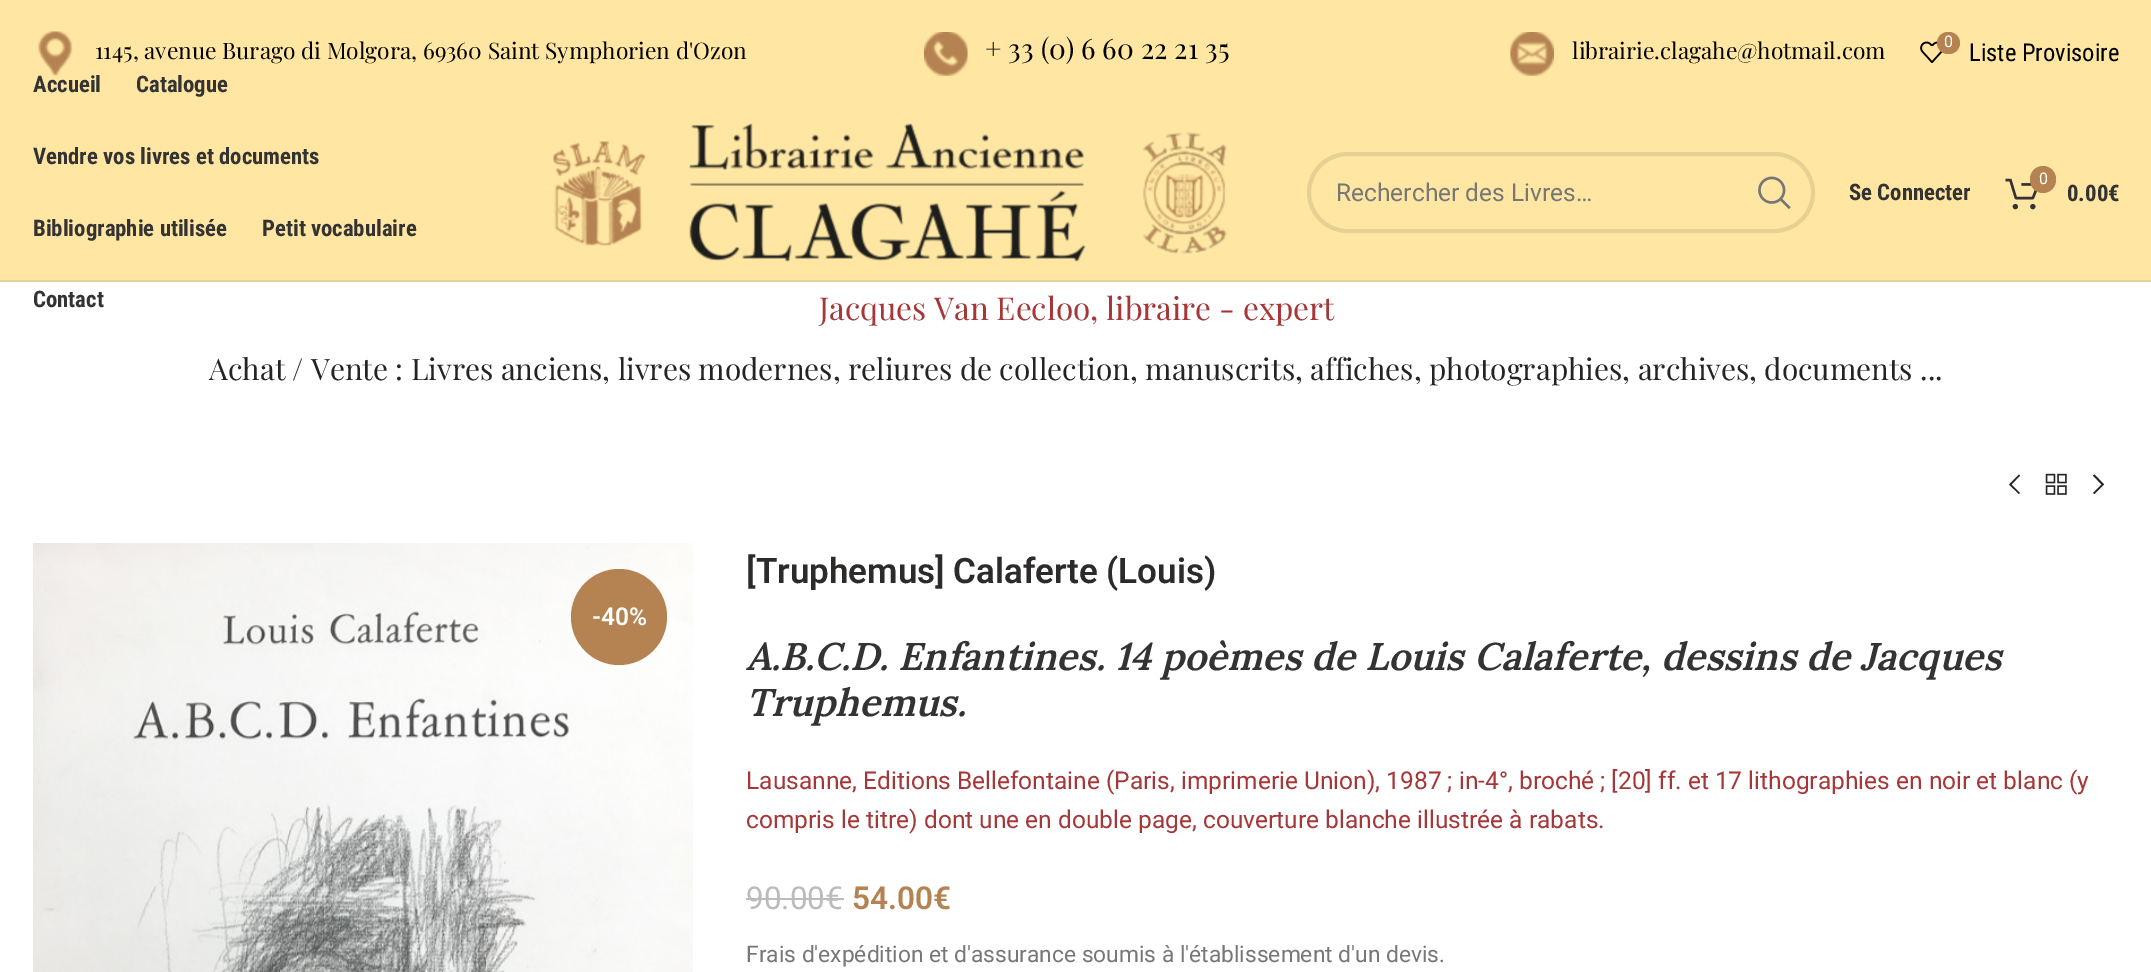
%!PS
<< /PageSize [2151 972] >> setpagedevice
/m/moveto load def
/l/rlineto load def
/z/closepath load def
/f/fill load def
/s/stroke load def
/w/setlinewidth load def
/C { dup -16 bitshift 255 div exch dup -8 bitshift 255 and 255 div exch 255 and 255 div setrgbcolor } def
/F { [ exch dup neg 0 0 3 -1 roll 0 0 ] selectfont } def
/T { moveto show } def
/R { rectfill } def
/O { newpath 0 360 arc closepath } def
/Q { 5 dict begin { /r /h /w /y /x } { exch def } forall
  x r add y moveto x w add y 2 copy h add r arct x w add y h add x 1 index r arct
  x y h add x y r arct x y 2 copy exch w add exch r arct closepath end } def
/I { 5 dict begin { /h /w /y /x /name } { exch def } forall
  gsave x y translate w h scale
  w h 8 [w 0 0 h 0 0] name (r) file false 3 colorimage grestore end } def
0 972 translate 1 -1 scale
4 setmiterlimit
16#FFFFFF C
0 0 2151 972 R
16#FFE7A3 C
0 0 2151 280 R
(1.rgb) 38 31 35 45 I
/PlayfairDisplay-Regular 22.75 F
16#000000 C
(1145, avenue Burago di Molgora, 69360 Saint Symphorien d'Ozon) 95 59 T
(2.rgb) 924 32 44 44 I
/PlayfairDisplay-Regular 28 F
(+ 33 \(0\) 6 60 22 21 35) 985 59 T
(3.rgb) 1510 32 44 44 I
/PlayfairDisplay-Regular 22.75 F
(librairie.clagahe@hotmail.com) 1572 59 T
(4.rgb) 1920 41 23 22 I
16#B58352 C
1937 32 23 22 11 Q f
/Roboto-Regular 16 F
16#FFFFFF C
(0) 1944 47 T
/RobotoCondensed-Regular 24.5 F
16#000000 C
(Liste Provisoire) 1969 61 T
16#E6D39C C
0 280 2151 2 R
/RobotoCondensed-Bold 22.75 F
16#333333 C
(Accueil) 33 92 T
(Catalogue) 136 92 T
(Vendre vos livres et documents) 33 164 T
(Bibliographie utilisée) 33 236 T
(Petit vocabulaire) 262 236 T
(Contact) 33 307 T
(5.rgb) 553 141 93 105 I
(6.rgb) 689 123 397 139 I
(7.rgb) 1142 132 85 122 I
16#E6D093 C
4 w
1309 154 504 77 38.5 Q s
/Roboto-Regular 24.5 F
16#777777 C
(Rechercher des Livres…) 1336 201 T
(8.rgb) 1758 176 33 34 I
/RobotoCondensed-Bold 22.75 F
16#333333 C
(Se Connecter) 1849 200 T
(9.rgb) 2005 178 33 32 I
16#B58352 C
2030 166 26 27 13 Q f
/Roboto-Regular 16 F
16#FFFFFF C
(0) 2039 184 T
/RobotoCondensed-Bold 22.75 F
16#333333 C
(0.00€) 2067 201 T
/PlayfairDisplay-Regular 31.5 F
16#A73638 C
(Jacques Van Eecloo, libraire - expert) 819 320 T
/PlayfairDisplay-Regular 29.75 F
16#242424 C
(Achat / Vente : Livres anciens, livres modernes, reliures de collection, manuscrits, affiches, photographies, archives, documents ...) 209 380 T
2020 475.5 m -1 -1 l -10 10 l 10 9.5 l 1 -1 l -8.5 -8.5 l z f
(10.rgb) 2045 473 22 22 I
2093 475.5 m 8.5 9 l -8.5 8.5 l 1.5 1 l 9.5 -9.5 l -9.5 -10 l z f
(11.rgb) 33 543 660 429 I
16#B58352 C
619 617 48 O f
/Roboto-SemiBold 24.5 F
16#FFFFFF C
(-40%) 592 625 T
/Roboto-SemiBold 35 F
16#2D2A2A C
([Truphemus] Calaferte \(Louis\)) 746 583 T
/Lora-SemiBoldItalic 38.5 F
16#333333 C
(A.B.C.D. Enfantines. 14 poèmes de Louis Calaferte, dessins de Jacques) 746 670 T
(Truphemus.) 746 716 T
/Roboto-Regular 24.5 F
16#A73638 C
(Lausanne, Editions Bellefontaine \(Paris, imprimerie Union\), 1987 ; in-4°, broché ; [20] ff. et 17 lithographies en noir et blanc \(y) 746 789 T
(compris le titre\) dont une en double page, couverture blanche illustrée à rabats.) 746 828 T
/Roboto-Regular 31.5 F
16#BBBBBB C
(90.00€) 746 909 T
746 898 98 2 R
/Roboto-SemiBold 31.5 F
16#B58352 C
(54.00€) 852 909 T
/Roboto-Regular 22.75 F
16#777777 C
(Frais d'expédition et d'assurance soumis à l'établissement d'un devis.) 746 962 T
showpage
